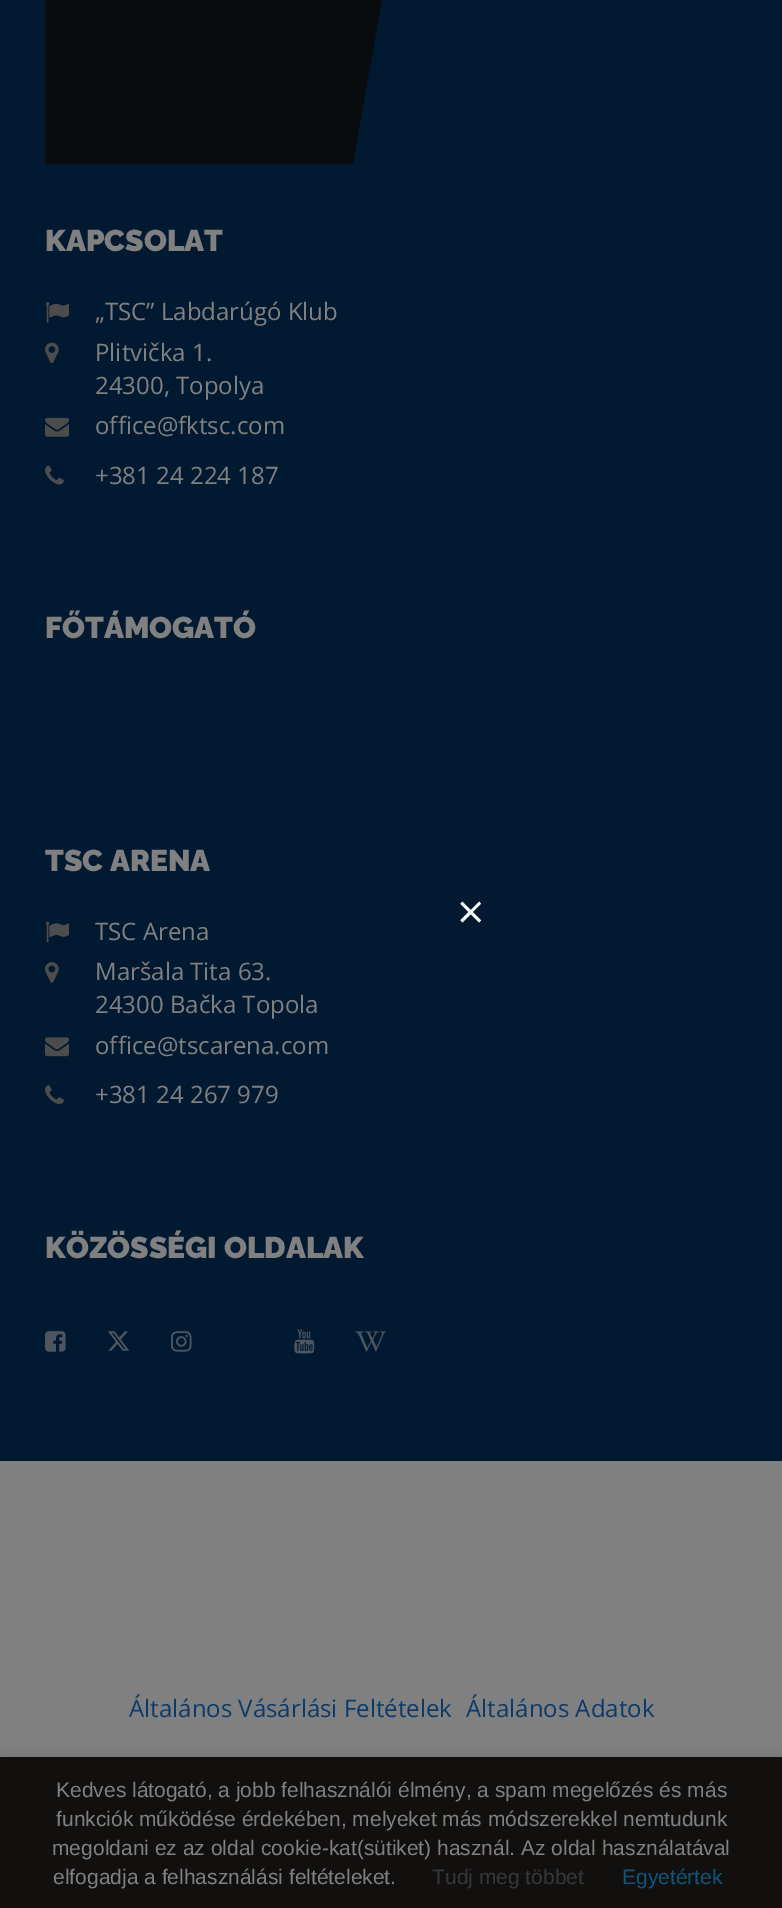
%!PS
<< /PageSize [782 1908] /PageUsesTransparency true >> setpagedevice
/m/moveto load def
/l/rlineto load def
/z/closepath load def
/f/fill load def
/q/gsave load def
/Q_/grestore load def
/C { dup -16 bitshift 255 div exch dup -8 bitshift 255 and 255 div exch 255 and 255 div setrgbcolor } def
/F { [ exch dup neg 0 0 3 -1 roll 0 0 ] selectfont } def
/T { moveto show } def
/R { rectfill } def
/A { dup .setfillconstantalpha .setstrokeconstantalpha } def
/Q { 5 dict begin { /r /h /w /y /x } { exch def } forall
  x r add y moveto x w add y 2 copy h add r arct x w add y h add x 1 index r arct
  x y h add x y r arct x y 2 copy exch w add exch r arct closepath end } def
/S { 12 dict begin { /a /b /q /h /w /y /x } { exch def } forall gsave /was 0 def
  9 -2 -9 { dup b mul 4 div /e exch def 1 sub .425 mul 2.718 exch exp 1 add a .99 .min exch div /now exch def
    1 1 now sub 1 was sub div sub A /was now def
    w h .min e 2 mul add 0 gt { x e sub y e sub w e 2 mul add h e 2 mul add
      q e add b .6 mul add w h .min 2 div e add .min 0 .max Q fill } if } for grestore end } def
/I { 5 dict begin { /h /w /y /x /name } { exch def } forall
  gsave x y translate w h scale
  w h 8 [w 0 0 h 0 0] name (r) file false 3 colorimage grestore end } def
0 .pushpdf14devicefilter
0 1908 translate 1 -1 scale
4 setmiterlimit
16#011931 C
0 0 782 1908 R
q
45 0 693 164 rectclip
16#090C0E C
-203 -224 m 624 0 l -68 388 l -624 0 l z f
Q_
/Raleway-Black 30 F
16#808080 C
(KAPCSOLAT) 45 251 T
(1.rgb) 45 302 24 21 I
/OpenSans-Regular 24 F
(„TSC” Labdarúgó Klub) 95 320 T
(2.rgb) 45 342 14 22 I
(Plitvička 1.) 95 361 T
(24300, Topolya) 95 394 T
(3.rgb) 45 417 24 20 I
(office@fktsc.com) 95 434 T
(4.rgb) 45 465 19 20 I
(+381 24 224 187) 95 484 T
/Raleway-Black 30 F
(FŐTÁMOGATÓ) 45 638 T
(TSC ARENA) 45 871 T
(5.rgb) 45 921 24 22 I
/OpenSans-Regular 24 F
(TSC Arena) 95 940 T
(6.rgb) 45 962 14 21 I
(Maršala Tita 63.) 95 980 T
(24300 Bačka Topola) 95 1013 T
(7.rgb) 45 1037 24 20 I
(office@tscarena.com) 95 1054 T
(8.rgb) 45 1085 19 19 I
(+381 24 267 979) 95 1103 T
/Raleway-Black 30 F
(KÖZÖSSÉGI OLDALAK) 45 1258 T
(9.rgb) 45 1331 21 21 I
(10.rgb) 108 1331 22 20 I
(11.rgb) 171 1331 21 21 I
(12.rgb) 294 1329 21 25 I
(13.rgb) 355 1331 32 21 I
0 1461 782 296 R
/OpenSans-Regular 24 F
16#0D3B69 C
(Általános Vásárlási Feltételek) 129 1717 T
(Általános Adatok) 466 1717 T
/OpenSans-Regular 48 F
16#FAFAFA C
(×) 457 929 T
16#565656 C
0 1755 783 152 0 7.5 .3 S
16#12100F C
0 1757 782 151 R
/LiberationSans-Regular 21 F
16#808080 C
(Kedves látogató, a jobb felhasználói élmény, a spam megelőzés és más) 56 1797 T
(funkciók működése érdekében, melyeket más módszerekkel nemtudunk) 56 1826 T
(megoldani ez az oldal cookie-kat\(sütiket\) használ. Az oldal használatával) 52 1855 T
(elfogadja a felhasználási feltételeket.) 53 1884 T
16#373737 C
(Tudj meg többet) 432 1884 T
16#0F547A C
(Egyetértek) 622 1884 T
.poppdf14devicefilter showpage
